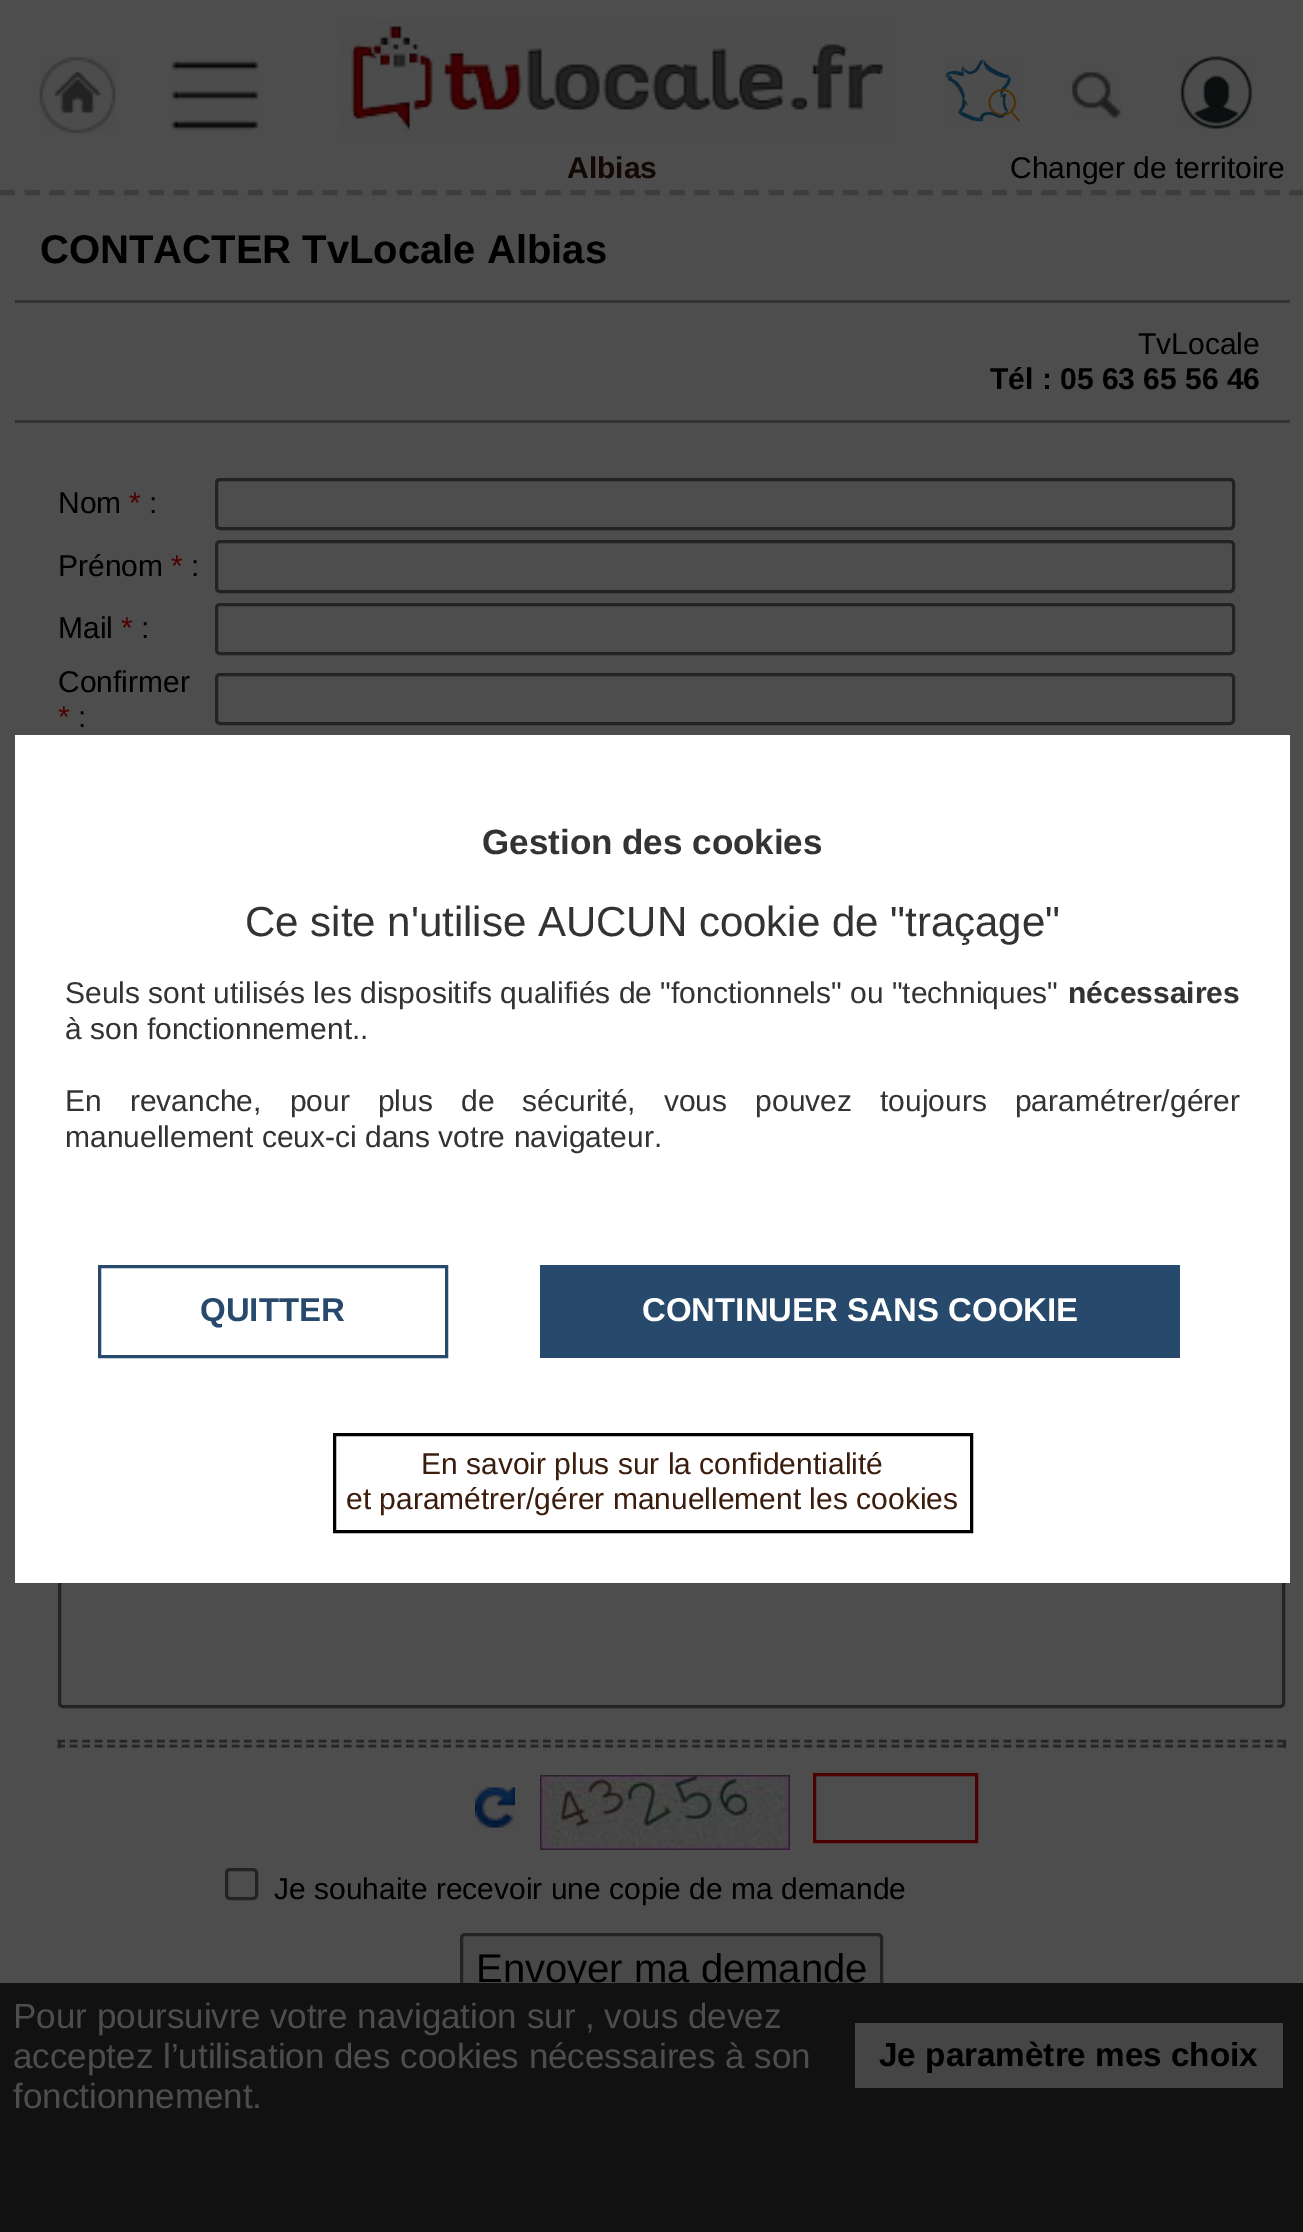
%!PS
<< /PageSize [1303 2232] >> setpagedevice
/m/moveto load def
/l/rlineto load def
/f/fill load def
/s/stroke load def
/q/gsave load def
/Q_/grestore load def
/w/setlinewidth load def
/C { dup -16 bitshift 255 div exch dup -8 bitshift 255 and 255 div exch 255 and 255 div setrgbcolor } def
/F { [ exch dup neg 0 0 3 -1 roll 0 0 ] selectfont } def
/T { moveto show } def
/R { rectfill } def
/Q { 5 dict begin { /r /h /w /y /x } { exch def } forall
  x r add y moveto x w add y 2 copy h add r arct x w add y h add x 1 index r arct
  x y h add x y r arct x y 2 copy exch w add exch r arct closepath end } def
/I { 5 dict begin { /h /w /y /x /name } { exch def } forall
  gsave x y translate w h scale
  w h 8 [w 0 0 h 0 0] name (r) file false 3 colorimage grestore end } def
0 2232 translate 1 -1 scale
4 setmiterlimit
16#4D4D4D C
0 0 1303 2232 R
16#3D3D3D C
5 w
[15 9.8] 0 setdash
0 192.5 m 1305 0 l s
(1.rgb) 39 56 77 78 I
(2.rgb) 170 59 89 72 I
(3.rgb) 340 20 553 123 I
/LiberationSans-Bold 30 F
16#120904 C
(Albias) 567 178 T
(4.rgb) 945 59 75 63 I
(5.rgb) 1071 71 50 48 I
(6.rgb) 1180 56 73 73 I
/LiberationSans-Regular 30 F
16#000000 C
(Changer de territoire) 1010 178 T
/LiberationSans-Bold 40 F
(CONTACTER TvLocale Albias) 40 263 T
16#333333 C
15 300 1275 3 R
/LiberationSans-Regular 30 F
16#000000 C
(TvLocale) 1138 354 T
/LiberationSans-Bold 30 F
(Tél : 05 63 65 56 46) 990 389 T
16#333333 C
15 420 1275 3 R
/LiberationSans-Regular 30 F
16#000000 C
(Nom) 58 513 T
16#4D0000 C
(*) 129 513 T
16#000000 C
(:) 149 513 T
16#232323 C
3 w
[] 0 setdash
216.5 479.5 1017 49 3.5 Q s
16#000000 C
(Prénom) 58 576 T
16#4D0000 C
(*) 171 576 T
16#000000 C
(:) 191 576 T
16#232323 C
216.5 541.5 1017 50 3.5 Q s
16#000000 C
(Mail) 58 638 T
16#4D0000 C
(*) 121 638 T
16#000000 C
(:) 141 638 T
16#232323 C
216.5 604.5 1017 49 3.5 Q s
16#000000 C
(Confirmer) 58 692 T
16#4D0000 C
(*) 58 727 T
16#000000 C
(:) 78 727 T
16#232323 C
216.5 674.5 1017 49 3.5 Q s
59.5 1194.5 1224 512 3.5 Q s
16#262626 C
2.5 w
[7.5 4.95] 0 setdash
57.5 1741 m 1227.5 0 l s
1283 1740 3 8 R
57.5 1746 m 1227.5 0 l s
58 1740 3 8 R
(7.rgb) 475 1787 40 41 I
(8.rgb) 540 1775 250 75 I
16#4D0000 C
3 w
[] 0 setdash
814.5 1774.5 162 67 rectstroke
16#232323 C
226.5 1869.5 30 29 3.5 Q s
16#000000 C
(Je souhaite recevoir une copie de ma demande) 274 1899 T
16#484848 C
461.5 1934.5 420 72 3.5 Q q f Q_
16#232323 C
s
/LiberationSans-Regular 40 F
16#000000 C
(Envoyer ma demande) 476 1982 T
16#FFFFFF C
15 735 1275 848 R
/LiberationSans-Bold 35 F
16#333333 C
(Gestion des cookies) 482 854 T
/LiberationSans-Regular 42 F
(Ce site n'utilise AUCUN cookie de "traçage") 245 936 T
/LiberationSans-Regular 30 F
(Seuls sont utilisés les dispositifs qualifiés de "fonctionnels" ou "techniques") 65 1003 T
/LiberationSans-Bold 30 F
(nécessaires) 1068 1003 T
/LiberationSans-Regular 30 F
(à son fonctionnement..) 65 1039 T
65 1111 m 19.75 0 32 (En revanche, pour plus de sécurité, vous pouvez toujours paramétrer/gérer) widthshow
(manuellement ceux-ci dans votre navigateur.) 65 1147 T
16#274A6C C
99.5 1266.5 347 90 rectstroke
/LiberationSans-Bold 33 F
(QUITTER) 200 1321 T
540 1265 640 93 R
16#FFFFFF C
(CONTINUER SANS COOKIE) 642 1321 T
16#000000 C
334.5 1434.5 637 97 rectstroke
/LiberationSans-Regular 30 F
16#3B1D0E C
(En savoir plus sur la confidentialité) 421 1474 T
(et paramétrer/gérer manuellement les cookies) 346 1509 T
16#111112 C
0 1983 1303 249 R
/LiberationSans-Regular 35 F
16#4D4D4D C
(Pour poursuivre votre navigation sur , vous devez) 13 2028 T
(acceptez l’utilisation des cookies nécessaires à son) 13 2068 T
(fonctionnement.) 13 2108 T
16#454545 C
855 2023 428 65 R
/LiberationSans-Bold 33.25 F
16#000000 C
(Je paramètre mes choix) 879 2066 T
showpage
